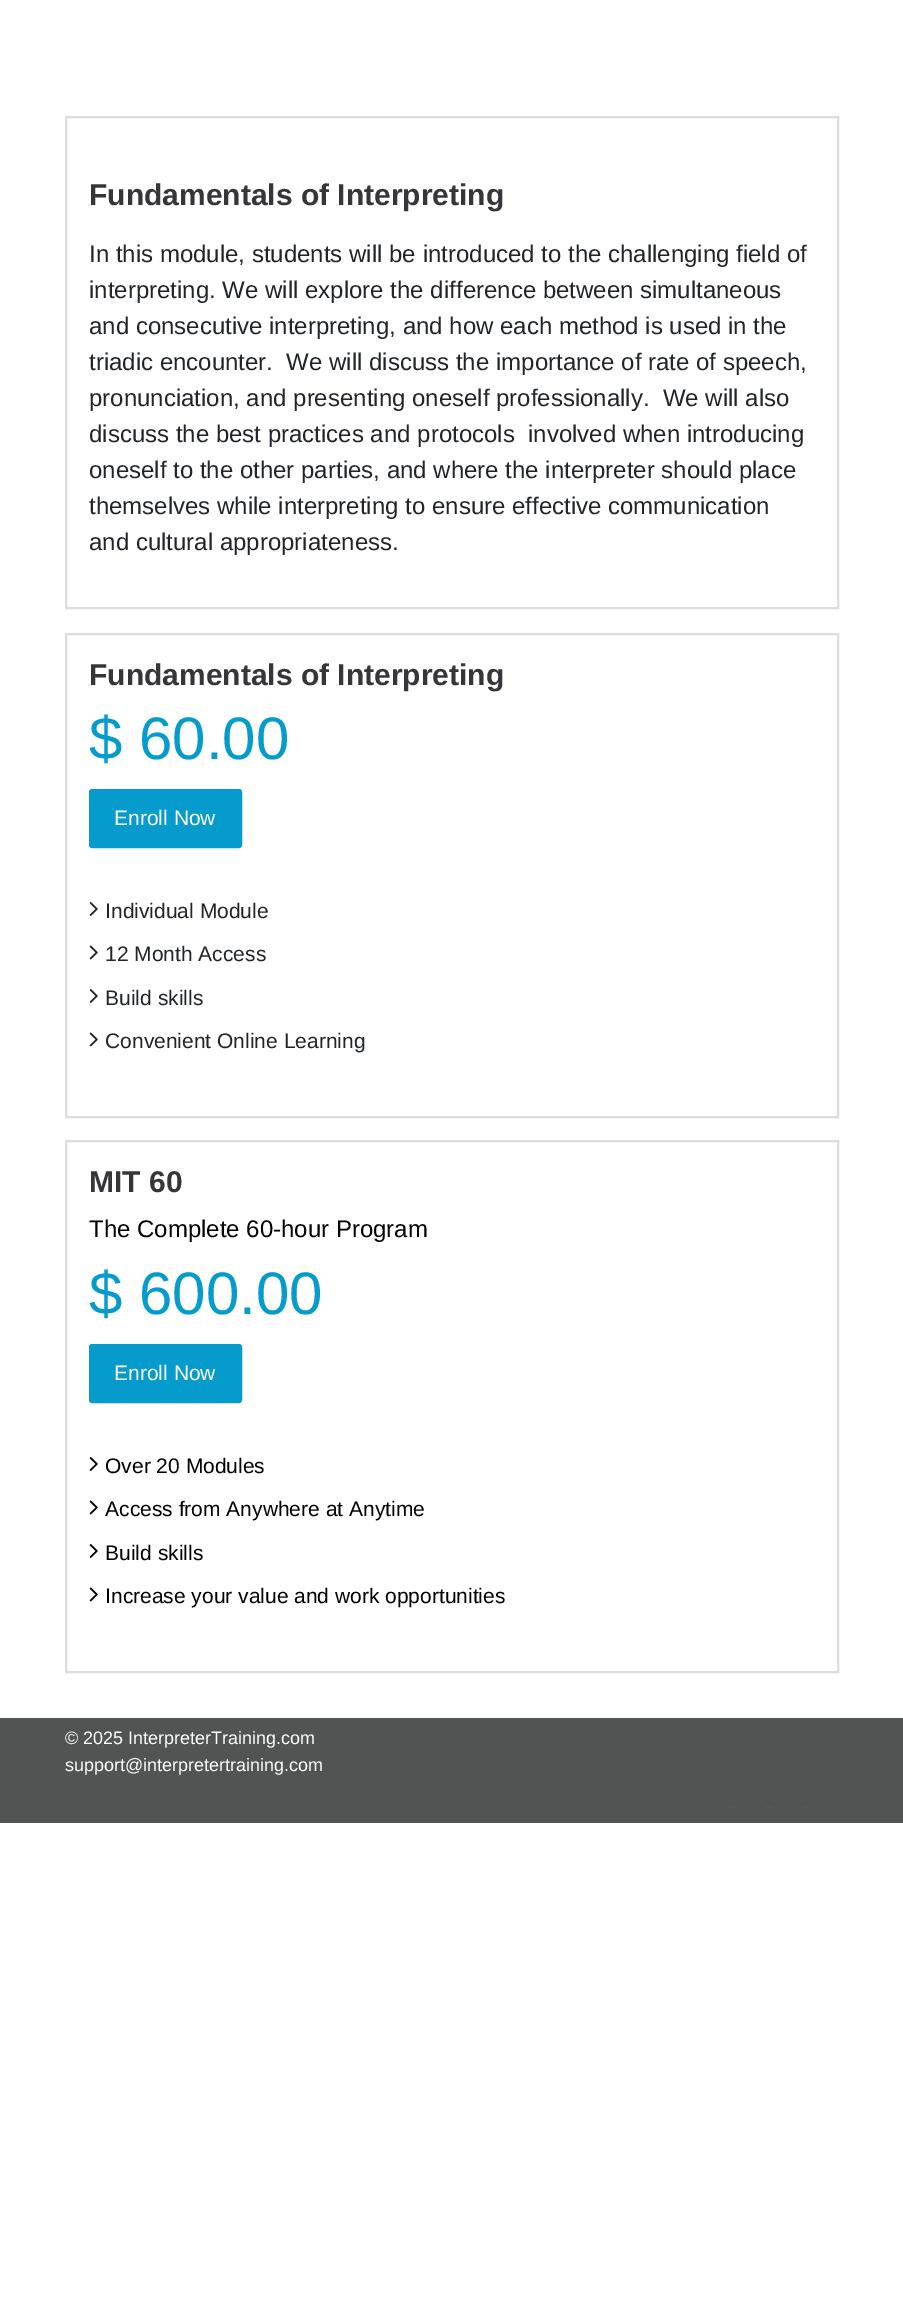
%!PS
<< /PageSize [903 2305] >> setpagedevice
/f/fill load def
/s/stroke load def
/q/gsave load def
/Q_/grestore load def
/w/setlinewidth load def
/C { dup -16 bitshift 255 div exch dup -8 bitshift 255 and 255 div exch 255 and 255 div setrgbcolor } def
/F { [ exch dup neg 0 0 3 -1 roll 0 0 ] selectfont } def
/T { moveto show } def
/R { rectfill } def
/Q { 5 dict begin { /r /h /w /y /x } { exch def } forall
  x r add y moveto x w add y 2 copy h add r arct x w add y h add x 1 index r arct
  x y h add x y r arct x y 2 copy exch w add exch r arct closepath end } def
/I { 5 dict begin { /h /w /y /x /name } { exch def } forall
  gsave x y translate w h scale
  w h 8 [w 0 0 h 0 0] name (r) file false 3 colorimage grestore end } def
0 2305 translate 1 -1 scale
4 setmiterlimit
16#FFFFFF C
0 0 903 2305 R
16#DDDDDD C
2 w
66 117 772 491 rectstroke
/LiberationSans-Bold 30 F
16#35353A C
(Fundamentals of Interpreting) 89 205 T
/LiberationSans-Regular 24 F
16#212529 C
(In this module, students will be introduced to the challenging field of) 89 262 T
(interpreting. We will explore the difference between simultaneous) 89 298 T
(and consecutive interpreting, and how each method is used in the) 89 334 T
(triadic encounter.  We will discuss the importance of rate of speech,) 89 370 T
(pronunciation, and presenting oneself professionally.  We will also) 89 406 T
(discuss the best practices and protocols  involved when introducing) 89 442 T
(oneself to the other parties, and where the interpreter should place) 89 478 T
(themselves while interpreting to ensure effective communication) 89 514 T
(and cultural appropriateness.) 89 550 T
16#DDDDDD C
66 634 772 483 rectstroke
/LiberationSans-Bold 30 F
16#35353A C
(Fundamentals of Interpreting) 89 685 T
/LiberationSans-Regular 60 F
16#069BCD C
($ 60.00) 89 759 T
90 790 151 57 2 Q q f Q_
s
/LiberationSans-Regular 21 F
16#FFFFFF C
(Enroll Now) 114 825 T
(1.rgb) 89 902 9 14 I
16#212529 C
(Individual Module) 105 918 T
(2.rgb) 89 945 9 15 I
(12 Month Access) 105 961 T
(1.rgb) 89 989 9 14 I
(Build skills) 105 1005 T
(2.rgb) 89 1032 9 15 I
(Convenient Online Learning) 105 1048 T
16#DDDDDD C
66 1141 772 531 rectstroke
/LiberationSans-Bold 30 F
16#35353A C
(MIT 60) 89 1192 T
/LiberationSans-Regular 24 F
16#000000 C
(The Complete 60-hour Program) 89 1237 T
/LiberationSans-Regular 60 F
16#069BCD C
($ 600.00) 89 1314 T
90 1345 151 57 2 Q q f Q_
s
/LiberationSans-Regular 21 F
16#FFFFFF C
(Enroll Now) 114 1380 T
(3.rgb) 89 1457 9 14 I
16#000000 C
(Over 20 Modules) 105 1473 T
(4.rgb) 89 1500 9 15 I
(Access from Anywhere at Anytime) 105 1516 T
(3.rgb) 89 1544 9 14 I
(Build skills) 105 1560 T
(4.rgb) 89 1587 9 15 I
(Increase your value and work opportunities) 105 1603 T
16#525353 C
0 1718 903 105 R
/LiberationSans-Regular 18 F
16#FFFFFF C
(© 2025 InterpreterTraining.com) 65 1744 T
(support@interpretertraining.com) 65 1771 T
16#55584F C
729 1806 6 2 R
765 1806 8 2 R
803 1806 6 2 R
showpage
